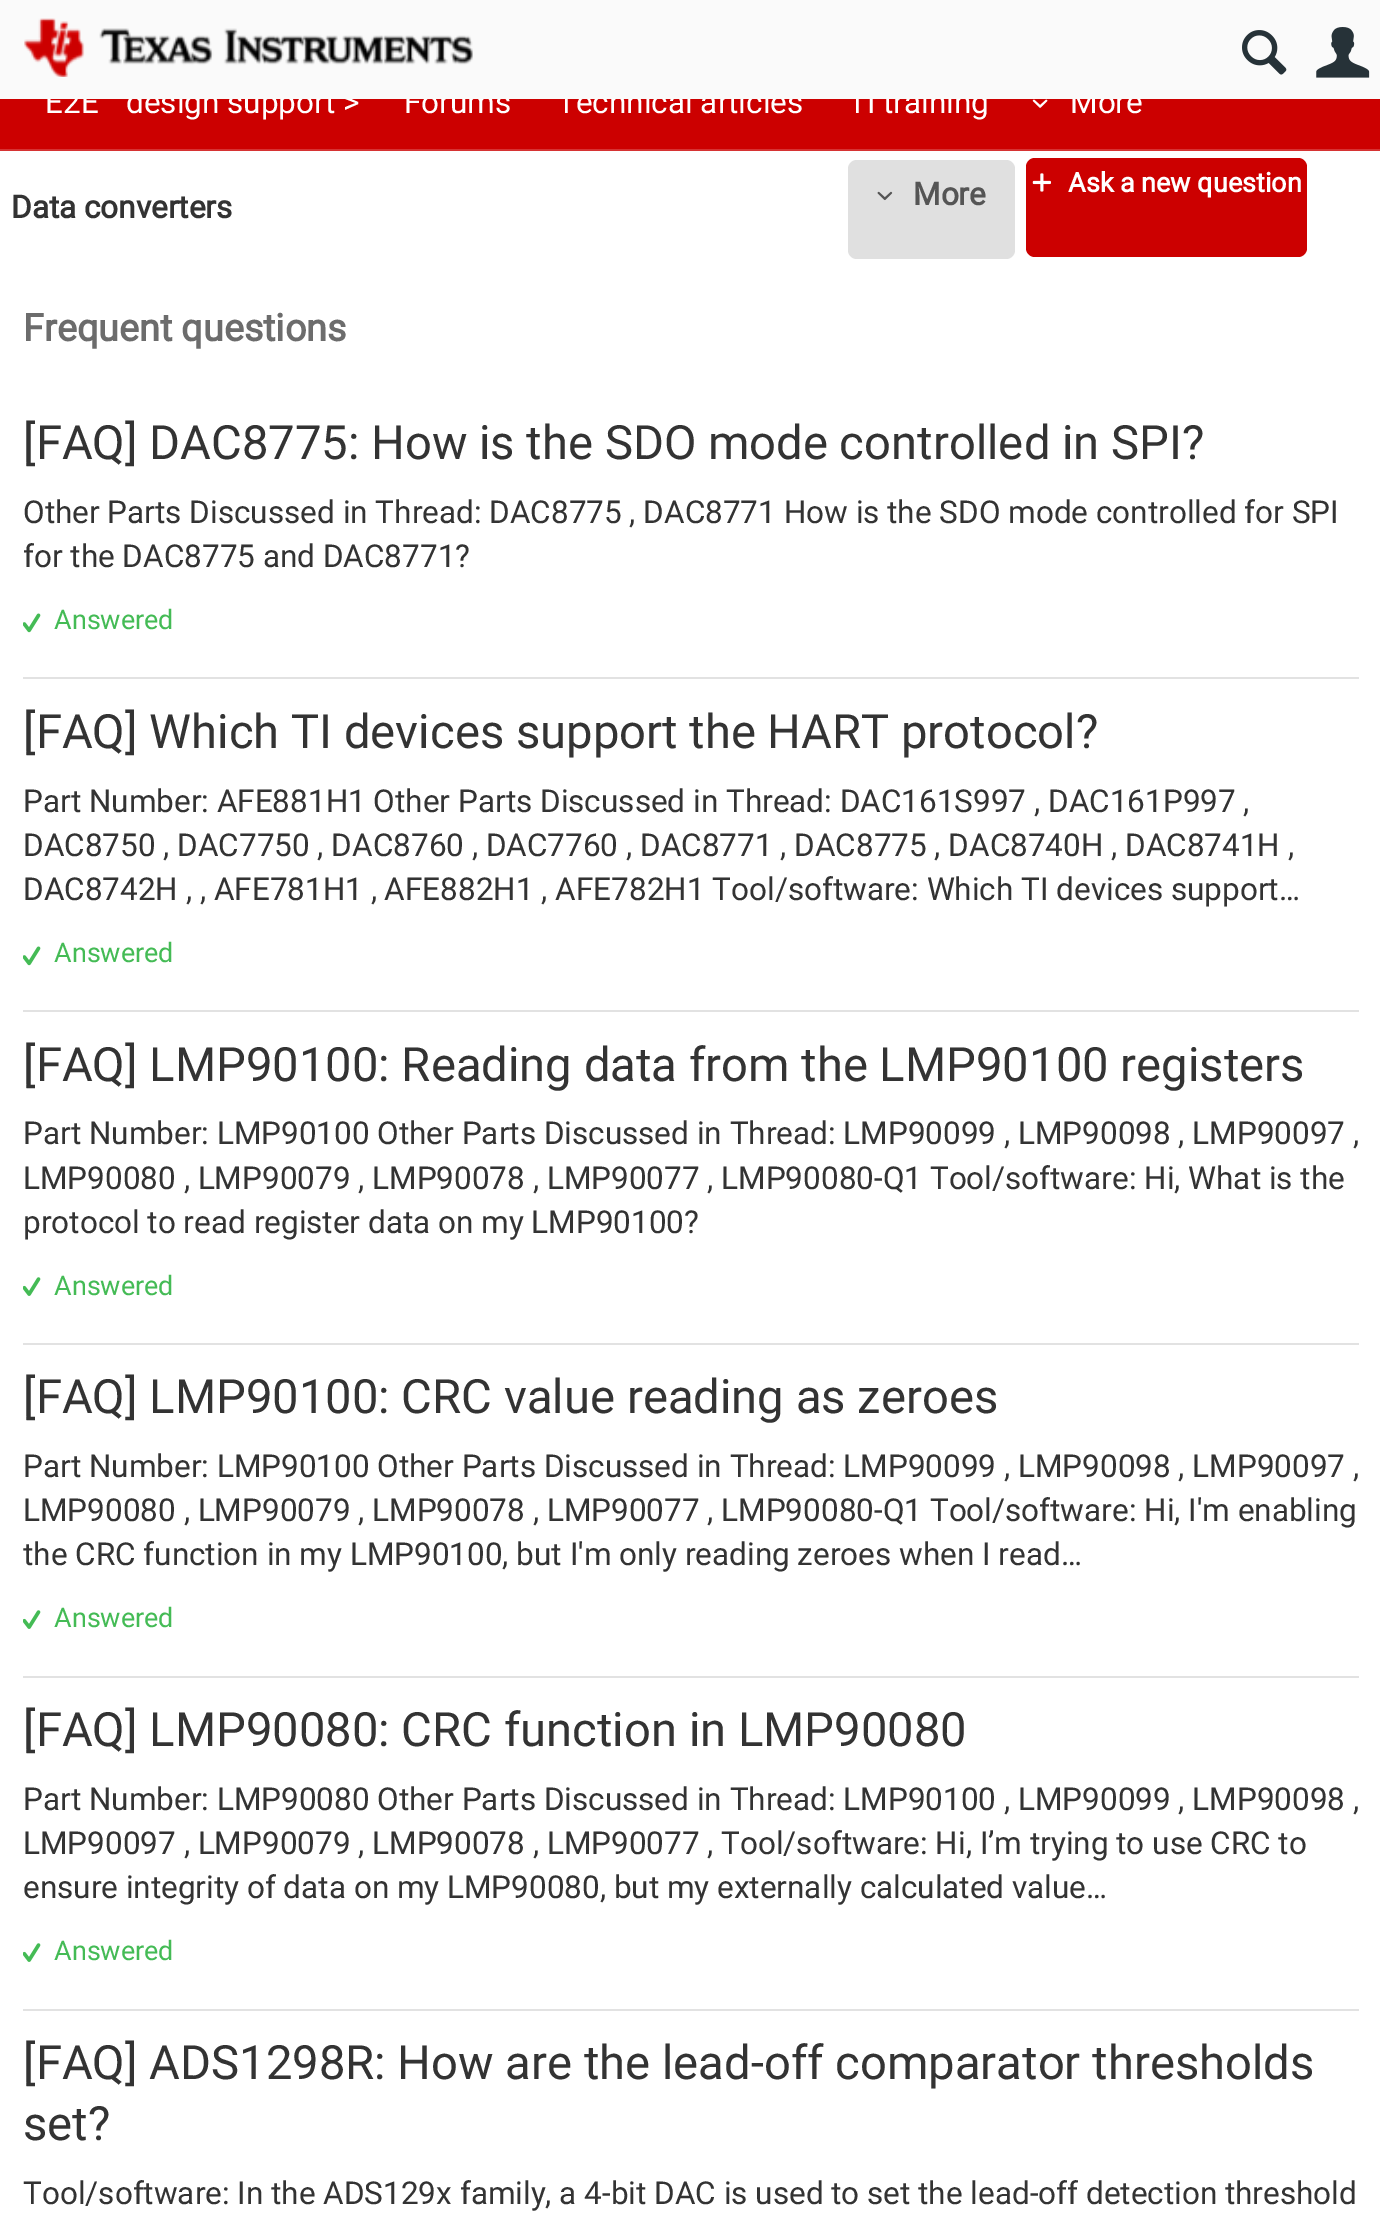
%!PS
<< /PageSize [1380 2238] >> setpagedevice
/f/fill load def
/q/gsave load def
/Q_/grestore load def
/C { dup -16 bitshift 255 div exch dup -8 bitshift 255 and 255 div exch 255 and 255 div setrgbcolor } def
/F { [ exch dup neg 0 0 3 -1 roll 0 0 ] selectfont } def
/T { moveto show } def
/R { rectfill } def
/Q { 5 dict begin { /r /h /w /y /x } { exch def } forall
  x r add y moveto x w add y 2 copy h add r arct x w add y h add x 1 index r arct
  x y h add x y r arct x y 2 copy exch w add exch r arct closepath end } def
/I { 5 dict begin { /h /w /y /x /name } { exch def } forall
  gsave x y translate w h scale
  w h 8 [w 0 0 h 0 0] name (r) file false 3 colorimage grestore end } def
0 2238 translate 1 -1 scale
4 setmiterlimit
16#FFFFFF C
0 0 1380 2238 R
16#CC0000 C
0 99 1380 50 R
/Roboto-Regular 31.5 F
16#FFFFFF C
(E2E™ design support >) 45 113 T
(Forums) 404 113 T
(Technical articles) 557 113 T
(TI training) 848 113 T
(More) 1070 113 T
16#FAFAFA C
0 0 1380 99 R
(1.rgb) 24 18 449 59 I
(2.rgb) 1242 30 45 45 I
(3.rgb) 1316 27 54 51 I
(4.rgb) 1032 99 16 9 I
16#D63333 C
0 149 1380 2 R
/Roboto-Bold 31.5 F
16#333333 C
(Data converters) 11 218 T
16#E0E0E0 C
848 160 167 99 9 Q f
(5.rgb) 877 191 16 10 I
16#555555 C
(More) 913 205 T
16#CC0000 C
1026 158 281 99 9 Q f
(6.rgb) 1032 173 19 19 I
/Roboto-Bold 27 F
16#FFFFFF C
(Ask a new question) 1068 192 T
/Roboto-Bold 37.75 F
16#6C6C6C C
(Frequent questions) 23 341 T
16#E2E2E2 C
23 677 1336 2 R
/Roboto-Regular 47.25 F
16#333333 C
([FAQ] DAC8775: How is the SDO mode controlled in SPI?) 23 459 T
/Roboto-Regular 31.5 F
(Other Parts Discussed in Thread: DAC8775 , DAC8771 How is the SDO mode controlled for SPI) 23 523 T
(for the DAC8775 and DAC8771?) 23 567 T
(7.rgb) 23 613 18 20 I
/Roboto-Regular 27 F
16#44BB55 C
(Answered) 54 629 T
16#E2E2E2 C
23 1010 1336 2 R
/Roboto-Regular 47.25 F
16#333333 C
([FAQ] Which TI devices support the HART protocol?) 23 748 T
/Roboto-Regular 31.5 F
(Part Number: AFE881H1 Other Parts Discussed in Thread: DAC161S997 , DAC161P997 ,) 23 812 T
(DAC8750 , DAC7750 , DAC8760 , DAC7760 , DAC8771 , DAC8775 , DAC8740H , DAC8741H ,) 23 856 T
(DAC8742H , , AFE781H1 , AFE882H1 , AFE782H1 Tool/software: Which TI devices support…) 23 900 T
(7.rgb) 23 946 18 20 I
/Roboto-Regular 27 F
16#44BB55 C
(Answered) 54 962 T
16#E2E2E2 C
23 1343 1336 2 R
/Roboto-Regular 47.25 F
16#333333 C
([FAQ] LMP90100: Reading data from the LMP90100 registers) 23 1081 T
/Roboto-Regular 31.5 F
(Part Number: LMP90100 Other Parts Discussed in Thread: LMP90099 , LMP90098 , LMP90097 ,) 23 1144 T
(LMP90080 , LMP90079 , LMP90078 , LMP90077 , LMP90080-Q1 Tool/software: Hi, What is the) 23 1189 T
(protocol to read register data on my LMP90100?) 23 1233 T
(8.rgb) 23 1277 18 19 I
/Roboto-Regular 27 F
16#44BB55 C
(Answered) 54 1295 T
16#E2E2E2 C
23 1676 1336 2 R
/Roboto-Regular 47.25 F
16#333333 C
([FAQ] LMP90100: CRC value reading as zeroes) 23 1413 T
/Roboto-Regular 31.5 F
(Part Number: LMP90100 Other Parts Discussed in Thread: LMP90099 , LMP90098 , LMP90097 ,) 23 1477 T
(LMP90080 , LMP90079 , LMP90078 , LMP90077 , LMP90080-Q1 Tool/software: Hi, I'm enabling) 23 1521 T
q
23 392 1336 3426 rectclip
(the CRC function in my LMP90100, but I'm only reading zeroes when I read…) 23 1565 T
Q_
(8.rgb) 23 1610 18 19 I
/Roboto-Regular 27 F
16#44BB55 C
(Answered) 54 1627 T
16#E2E2E2 C
23 2009 1336 2 R
/Roboto-Regular 47.25 F
16#333333 C
([FAQ] LMP90080: CRC function in LMP90080) 23 1746 T
/Roboto-Regular 31.5 F
(Part Number: LMP90080 Other Parts Discussed in Thread: LMP90100 , LMP90099 , LMP90098 ,) 23 1810 T
(LMP90097 , LMP90079 , LMP90078 , LMP90077 , Tool/software: Hi, I’m trying to use CRC to) 23 1854 T
(ensure integrity of data on my LMP90080, but my externally calculated value…) 23 1898 T
(8.rgb) 23 1943 18 19 I
/Roboto-Regular 27 F
16#44BB55 C
(Answered) 54 1960 T
/Roboto-Regular 47.25 F
16#333333 C
([FAQ] ADS1298R: How are the lead-off comparator thresholds) 23 2079 T
(set?) 23 2140 T
/Roboto-Regular 31.5 F
(Tool/software: In the ADS129x family, a 4-bit DAC is used to set the lead-off detection threshold) 23 2204 T
showpage
